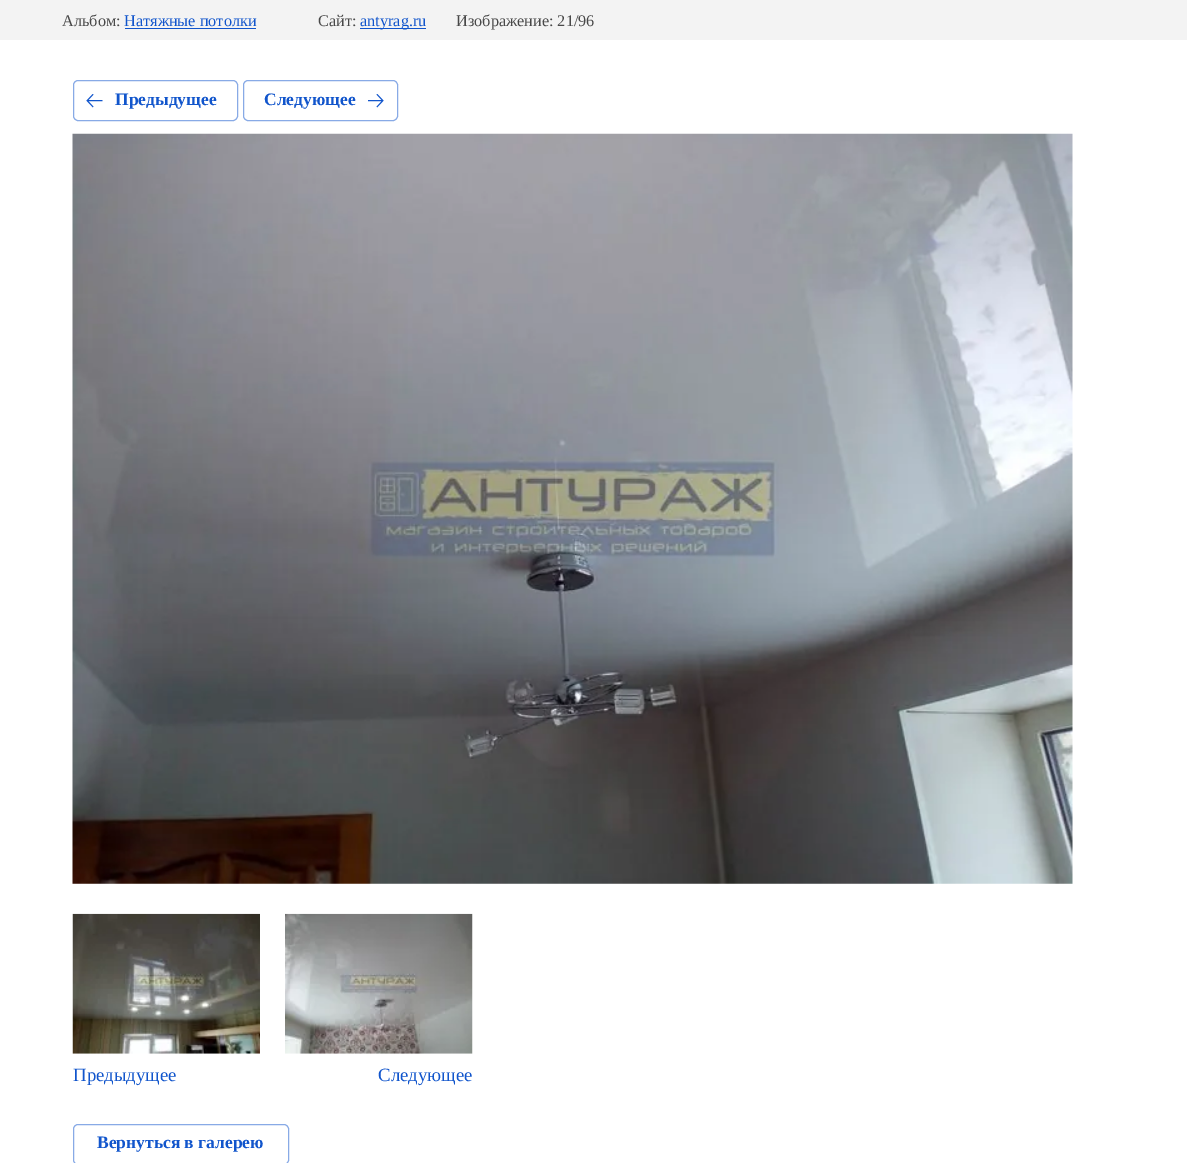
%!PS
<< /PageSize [1187 1163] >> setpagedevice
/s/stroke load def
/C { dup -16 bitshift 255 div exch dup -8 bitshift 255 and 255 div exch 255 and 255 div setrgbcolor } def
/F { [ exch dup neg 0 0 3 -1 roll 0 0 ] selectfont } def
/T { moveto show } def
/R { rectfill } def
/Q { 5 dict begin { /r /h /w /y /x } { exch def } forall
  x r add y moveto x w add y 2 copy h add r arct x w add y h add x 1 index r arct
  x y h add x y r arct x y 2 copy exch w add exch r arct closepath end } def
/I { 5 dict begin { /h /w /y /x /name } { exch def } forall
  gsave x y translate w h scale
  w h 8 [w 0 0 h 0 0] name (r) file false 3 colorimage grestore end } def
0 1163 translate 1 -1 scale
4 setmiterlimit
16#FFFFFF C
0 0 1187 1163 R
16#F3F3F3 C
0 0 1187 40 R
/LiberationSerif-Regular 16.25 F
16#484848 C
(Альбом:) 62 26 T
16#1155CC C
(Натяжные потолки) 124 26 T
125 28 131 1 R
16#484848 C
(Сайт:) 318 26 T
16#1155CC C
360 28 66 1 R
(antyrag.ru) 360 26 T
16#484848 C
(Изображение: 21/96) 456 26 T
16#88AAE6 C
73.5 80.5 164 40 4.5 Q s
(1.rgb) 86 94 17 14 I
/LiberationSerif-Bold 17.5 F
16#1155CC C
(Предыдущее) 115 105 T
16#88AAE6 C
243.5 80.5 154 40 4.5 Q s
16#1155CC C
(Следующее) 264 105 T
(2.rgb) 368 94 16 14 I
(3.rgb) 72 133 1001 751 I
(4.rgb) 72 913 188 141 I
/LiberationSerif-Regular 18.75 F
(Предыдущее) 73 1081 T
(5.rgb) 285 913 188 141 I
(Следующее) 378 1081 T
16#88AAE6 C
73.5 1124.5 215 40 4.5 Q s
/LiberationSerif-Bold 17.5 F
16#1155CC C
(Вернуться в галерею) 97 1148 T
showpage
